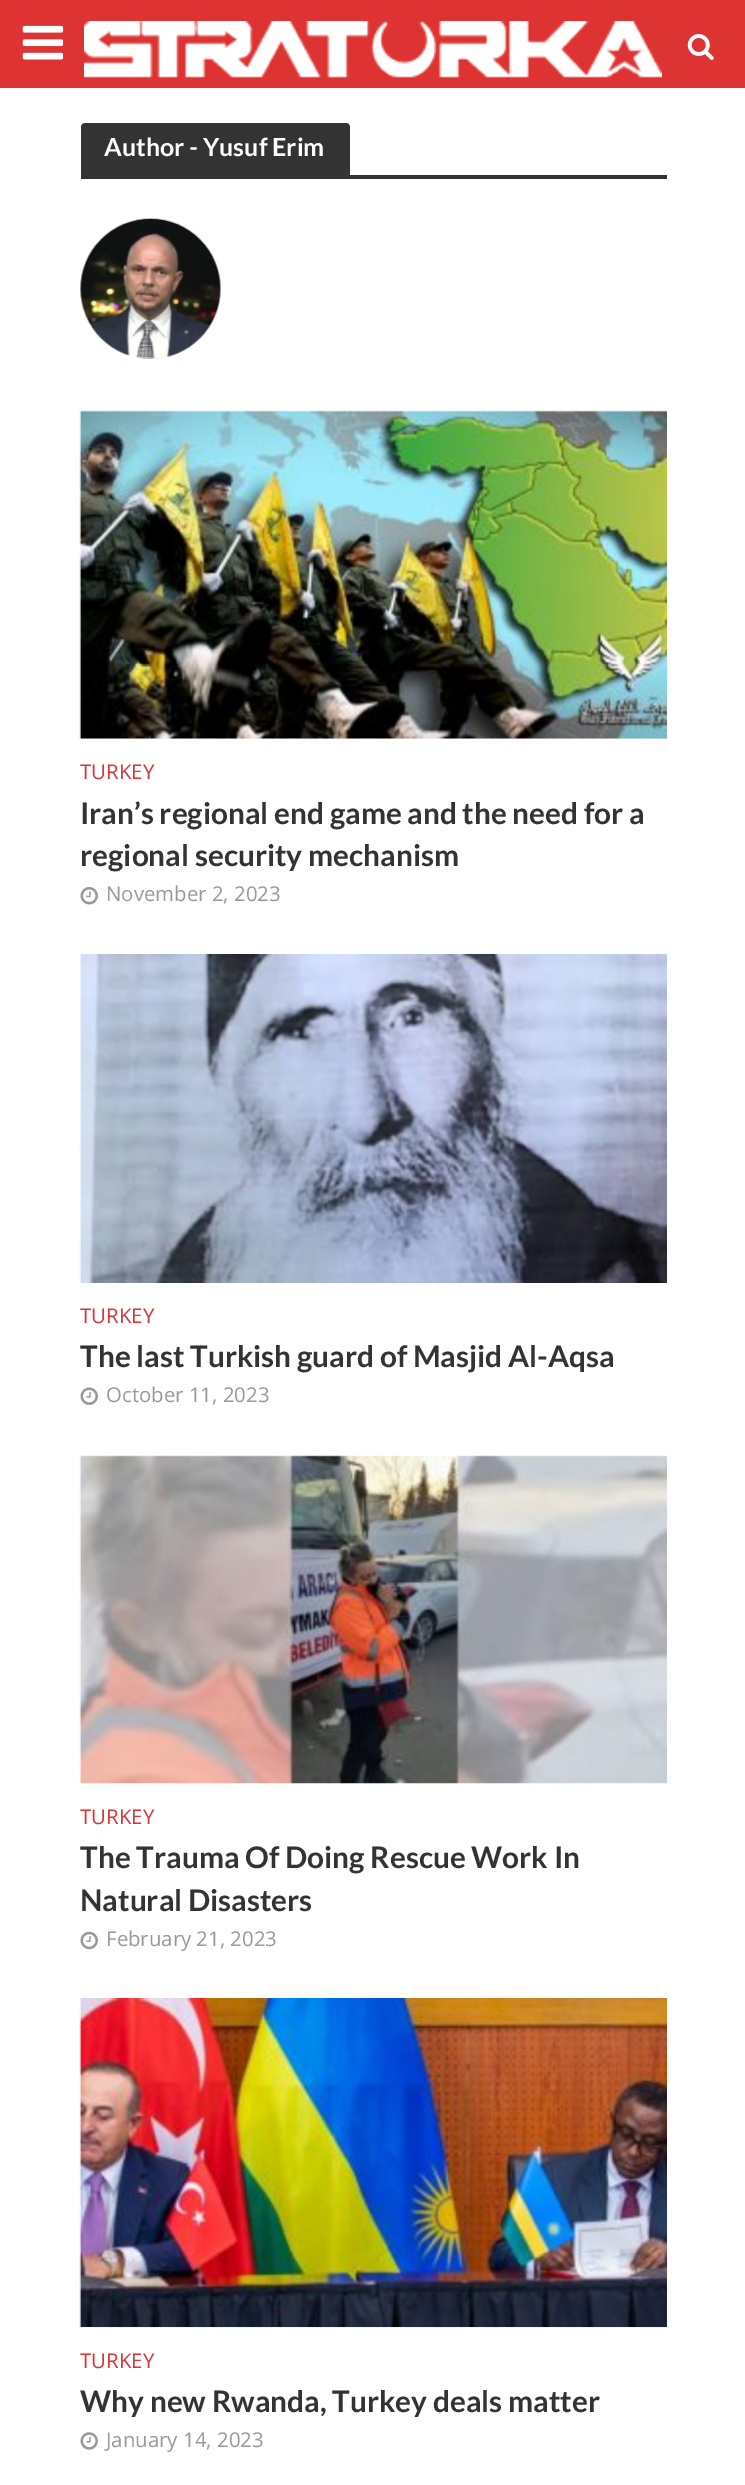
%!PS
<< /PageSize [745 2485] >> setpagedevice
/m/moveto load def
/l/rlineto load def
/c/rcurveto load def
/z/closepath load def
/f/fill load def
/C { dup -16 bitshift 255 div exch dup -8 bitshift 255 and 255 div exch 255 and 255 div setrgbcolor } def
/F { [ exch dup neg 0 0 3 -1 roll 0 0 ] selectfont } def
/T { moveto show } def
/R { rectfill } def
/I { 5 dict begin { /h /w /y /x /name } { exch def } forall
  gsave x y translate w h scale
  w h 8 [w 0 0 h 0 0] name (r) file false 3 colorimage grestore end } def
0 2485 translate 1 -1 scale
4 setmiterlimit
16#FFFFFF C
0 0 745 2485 R
16#DD3333 C
0 0 745 88 R
(1.rgb) 22 25 42 35 I
(2.rgb) 84 21 578 57 I
(3.rgb) 687 34 27 26 I
16#333333 C
85 123 m 261 0 l 2 0 4 2 4 4 c 0 48 l -269 0 l 0 -48 l 0 -2 2 -4 4 -4 c z f
/Lato-Bold 25 F
16#FFFFFF C
(Author - Yusuf Erim) 104 156 T
16#333333 C
81 175 586 4 R
(4.rgb) 80 218 141 141 I
16#F3F3F3 C
81 411 586 328 R
(5.rgb) 79 410 588 329 I
/OpenSans-Regular 20.4 F
16#DD3333 C
(TURKEY) 80 779 T
/Lato-Bold 29.75 F
16#333333 C
(Iran’s regional end game and the need for a) 80 824 T
(regional security mechanism) 80 866 T
(6.rgb) 80 887 18 18 I
/OpenSans-Regular 20.4 F
16#999999 C
(November 2, 2023) 106 901 T
(7.rgb) 79 954 588 329 I
16#DD3333 C
(TURKEY) 80 1323 T
/Lato-Bold 29.75 F
16#333333 C
(The last Turkish guard of Masjid Al-Aqsa) 80 1367 T
(8.rgb) 80 1387 18 18 I
/OpenSans-Regular 20.4 F
16#999999 C
(October 11, 2023) 106 1402 T
(9.rgb) 79 1455 588 329 I
16#DD3333 C
(TURKEY) 80 1824 T
/Lato-Bold 29.75 F
16#333333 C
(The Trauma Of Doing Rescue Work In) 80 1868 T
(Natural Disasters) 80 1911 T
(10.rgb) 80 1931 18 19 I
/OpenSans-Regular 20.4 F
16#999999 C
(February 21, 2023) 106 1946 T
16#F3F3F3 C
81 2327 586 1 R
(11.rgb) 79 1998 588 329 I
16#DD3333 C
(TURKEY) 80 2368 T
/Lato-Bold 29.75 F
16#333333 C
(Why new Rwanda, Turkey deals matter) 80 2412 T
(12.rgb) 80 2432 18 18 I
/OpenSans-Regular 20.4 F
16#999999 C
(January 14, 2023) 106 2447 T
showpage
